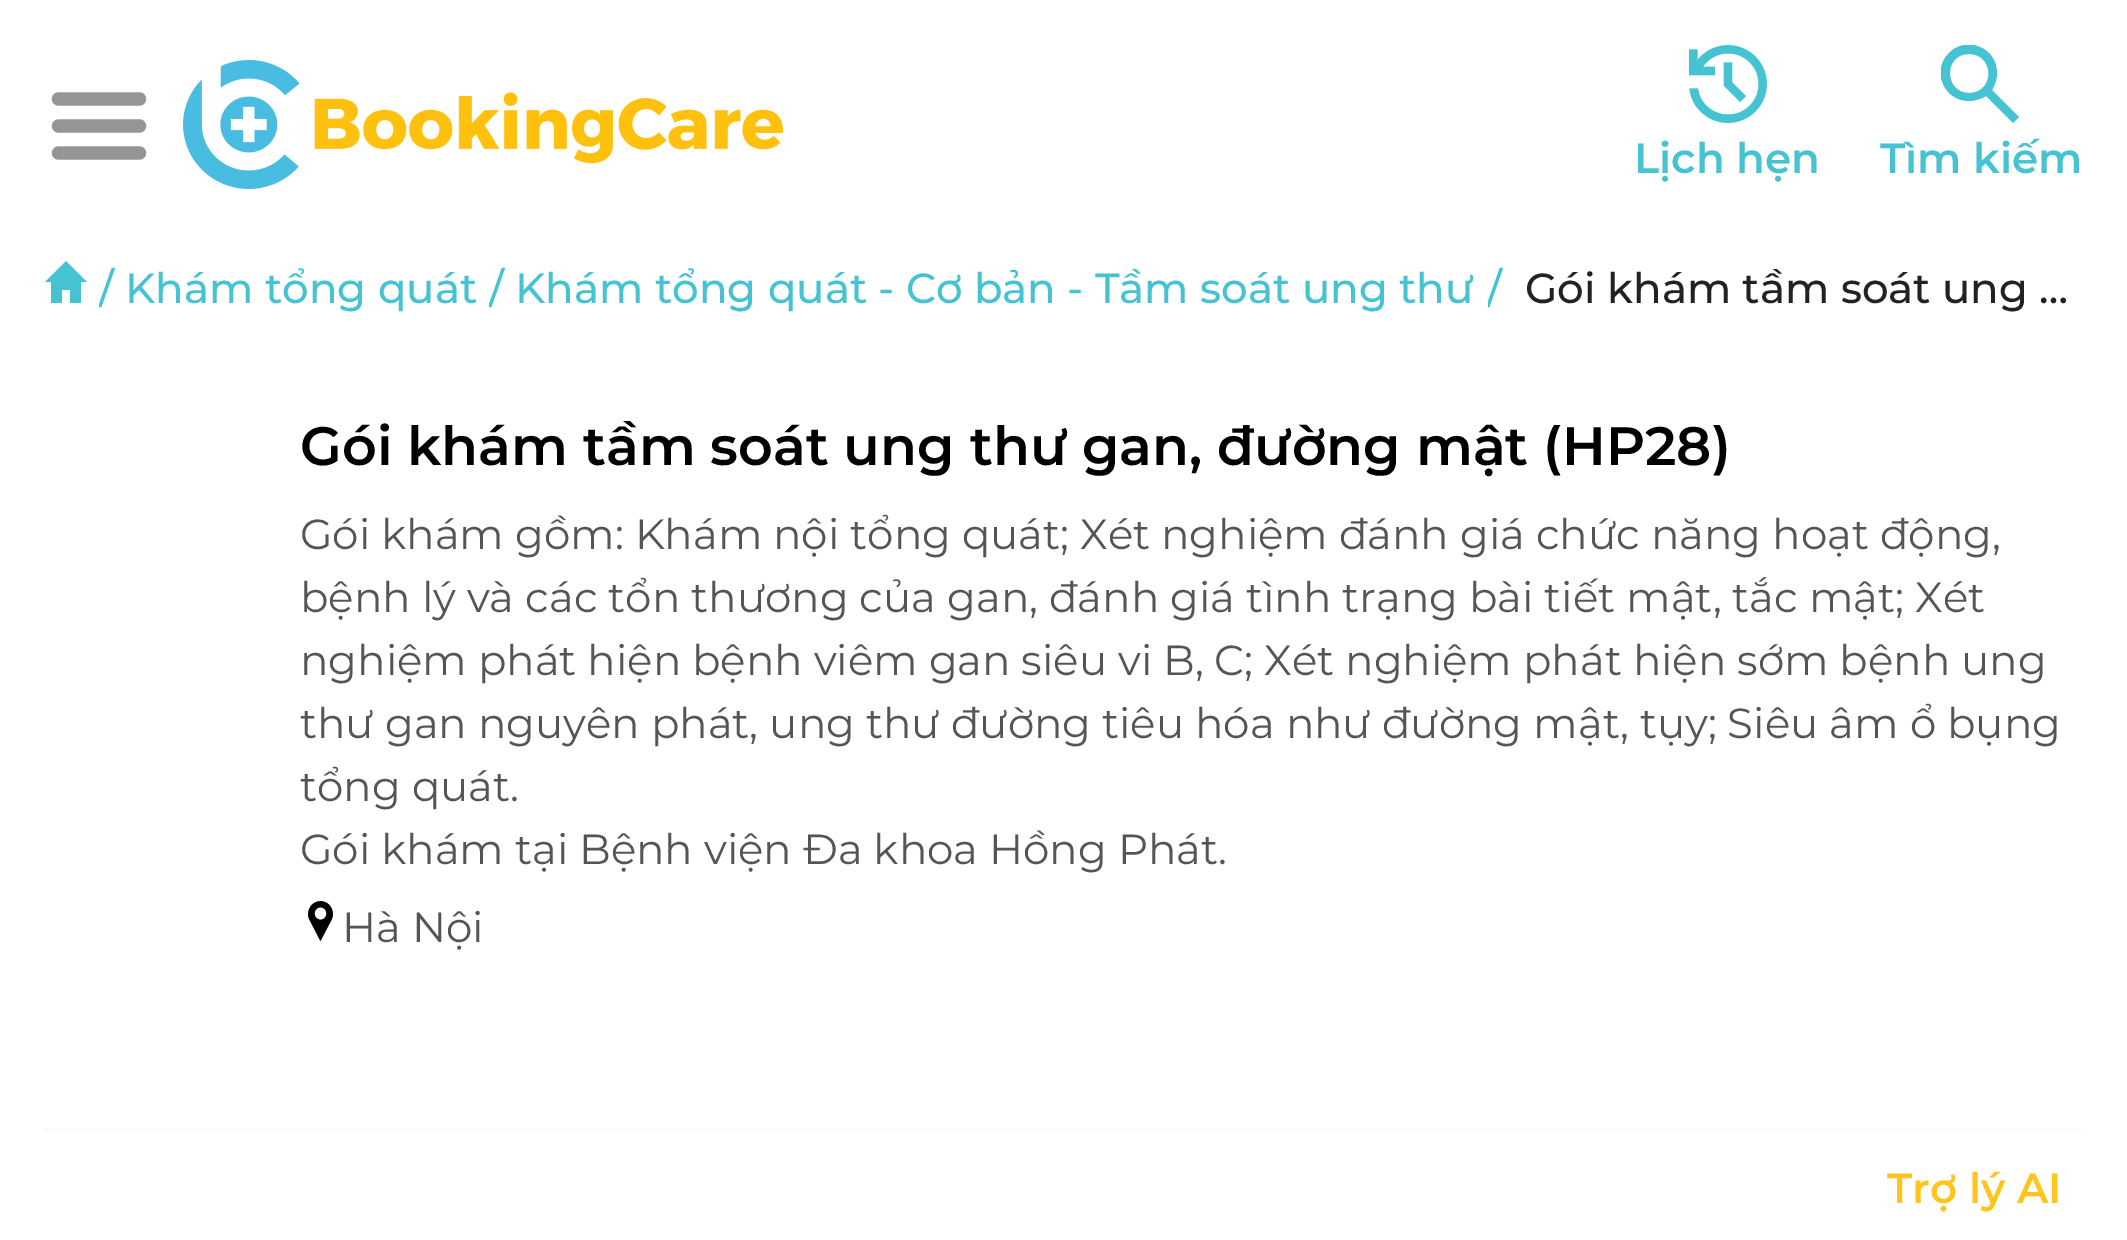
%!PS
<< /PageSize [2127 1240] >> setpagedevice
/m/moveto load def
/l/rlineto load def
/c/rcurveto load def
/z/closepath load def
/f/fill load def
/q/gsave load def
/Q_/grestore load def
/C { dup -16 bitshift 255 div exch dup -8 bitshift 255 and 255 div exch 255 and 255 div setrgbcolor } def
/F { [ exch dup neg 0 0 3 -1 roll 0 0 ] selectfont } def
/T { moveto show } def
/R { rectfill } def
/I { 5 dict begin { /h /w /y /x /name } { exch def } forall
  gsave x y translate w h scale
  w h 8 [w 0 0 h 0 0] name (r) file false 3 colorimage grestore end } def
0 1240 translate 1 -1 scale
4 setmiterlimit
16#FFFFFF C
0 0 2127 1240 R
(1.rgb) 51 92 96 68 I
(2.rgb) 183 60 600 129 I
(3.rgb) 1689 45 78 78 I
/Montserrat-SemiBold 42 F
16#45C3D2 C
(Lịch hẹn) 1634 173 T
q
1941 45 78 78 rectclip
2013 123 m -27 -27 l -5 3 -11 5 -17 5 c -25 0 -38 -30 -20 -48 c 18 -18 48 -5 48 20 c 0 6 -2 12 -5 17 c 27 27 l z 1969 93 m 26 0 26 -39 0 -39 c -26 0 -25 39 0 39 c f
Q_
(Tìm kiếm) 1880 173 T
62 303 m -11 0 l 0 -21 l -6 0 l 21 -21 l 21 21 l -6 0 l 0 21 l -11 0 l 0 -13 l -8 0 l z f
q
99 258 1983 63 rectclip
/Montserrat-Medium 42 F
(/) 99 303 T
Q_
/Montserrat-Medium 42 F
(Khám tổng quát) 125 303 T
q
489 258 987 63 rectclip
(/) 489 303 T
Q_
(Khám tổng quát - Cơ bản - Tầm soát ung thư) 515 303 T
q
1488 258 594 63 rectclip
(/) 1487 303 T
Q_
16#222222 C
(Gói khám tầm soát ung …) 1525 303 T
/Montserrat-SemiBold 54 F
16#000000 C
(Gói khám tầm soát ung thư gan, đường mật \(HP28\)) 300 465 T
/Montserrat-Regular 42 F
16#555555 C
(Gói khám gồm: Khám nội tổng quát; Xét nghiệm đánh giá chức năng hoạt động,) 300 549 T
(bệnh lý và các tổn thương của gan, đánh giá tình trạng bài tiết mật, tắc mật; Xét) 300 612 T
(nghiệm phát hiện bệnh viêm gan siêu vi B, C; Xét nghiệm phát hiện sớm bệnh ung) 300 675 T
(thư gan nguyên phát, ung thư đường tiêu hóa như đường mật, tụy; Siêu âm ổ bụng) 300 738 T
(tổng quát.) 300 801 T
(Gói khám tại Bệnh viện Đa khoa Hồng Phát.) 300 864 T
(4.rgb) 308 901 25 40 I
(Hà Nội) 342 942 T
16#F9F9F9 C
45 1128 2037 3 R
/Montserrat-SemiBold 42 F
16#FEC51D C
(Trợ lý AI) 1887 1203 T
showpage
